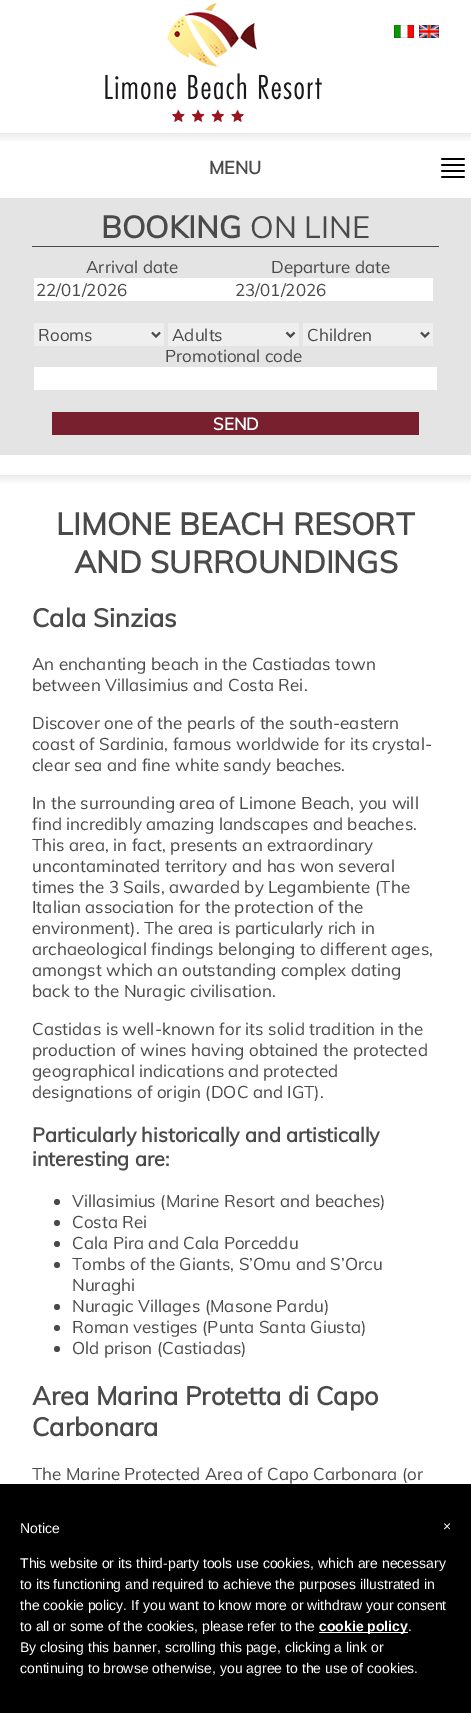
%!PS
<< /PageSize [471 1713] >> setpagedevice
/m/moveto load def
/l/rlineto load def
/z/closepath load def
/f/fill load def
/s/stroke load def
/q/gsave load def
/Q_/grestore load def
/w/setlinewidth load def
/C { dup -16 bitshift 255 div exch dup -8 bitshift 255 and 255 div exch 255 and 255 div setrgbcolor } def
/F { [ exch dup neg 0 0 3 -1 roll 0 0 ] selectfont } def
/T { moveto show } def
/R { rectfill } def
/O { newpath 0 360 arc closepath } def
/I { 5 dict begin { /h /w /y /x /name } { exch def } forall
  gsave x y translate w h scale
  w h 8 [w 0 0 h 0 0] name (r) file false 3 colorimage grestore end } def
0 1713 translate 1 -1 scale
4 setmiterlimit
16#FFFFFF C
0 0 471 1713 R
(1.rgb) 105 3 217 119 I
(2.rgb) 394 25 20 13 I
(3.rgb) 419 25 20 13 I
q 0 133 m 471 0 l 0 9 l -471 0 l z clip newpath
<< /ShadingType 2 /ColorSpace /DeviceRGB /Coords [236 133 236 143] /Extend [true true] /Function << /FunctionType 2 /Domain [0 1] /C0 [.925 .925 .925] /C1 [1 1 1] /N 1 >> >> shfill Q_
(4.rgb) 441 158 24 20 I
/Muli-Bold 18 F
16#4A4A4A C
(MENU) 209 174 T
16#E4E4E4 C
0 198 471 257 R
16#4A4A4A C
32 246 407 1 R
/Muli-Bold 30.6 F
(BOOKING) 101 238 T
/Muli-Regular 30.6 F
(ON LINE) 250 238 T
/Muli-Regular 17 F
(Arrival date) 86 273 T
16#FFFFFF C
34 278 399 23 R
16#4A4A4A C
(22/01/2026) 36 296 T
(Departure date) 271 273 T
(23/01/2026) 235 296 T
16#EFEFEF C
34 323 130 23 R
16#4A4A4A C
2 w
152 332.5 m 4 4 l 4 -4 l s
(Rooms) 38 341 T
16#EFEFEF C
168 323 131 23 R
16#4A4A4A C
286.5 332.5 m 4 4 l 4 -4 l s
(Adults) 172 341 T
16#EFEFEF C
303 323 130 23 R
16#4A4A4A C
421 332.5 m 4 4 l 4 -4 l s
(Children) 307 341 T
(Promotional code) 165 362 T
16#FFFFFF C
34 367 403 23 R
16#78202E C
52 412 367 23 R
/Muli-Bold 17 F
16#FFFFFF C
(SEND) 213 430 T
q 0 475 m 471 0 l 0 9 l -471 0 l z clip newpath
<< /ShadingType 2 /ColorSpace /DeviceRGB /Coords [236 475 236 485] /Extend [true true] /Function << /FunctionType 2 /Domain [0 1] /C0 [.925 .925 .925] /C1 [1 1 1] /N 1 >> >> shfill Q_
/Muli-Bold 30.6 F
16#4A4A4A C
(LIMONE BEACH RESORT) 56 535 T
(AND SURROUNDINGS) 74 573 T
/Muli-Bold 25.5 F
(Cala Sinzias) 32 627 T
/Muli-Regular 17 F
(An enchanting beach in the Castiadas town) 32 670 T
(between Villasimius and Costa Rei.) 32 691 T
(Discover one of the pearls of the south-eastern) 32 729 T
(coast of Sardinia, famous worldwide for its crystal-) 32 750 T
(clear sea and fine white sandy beaches.) 32 771 T
(In the surrounding area of Limone Beach, you will) 32 809 T
(find incredibly amazing landscapes and beaches.) 32 830 T
(This area, in fact, presents an extraordinary) 32 851 T
(uncontaminated territory and has won several) 32 872 T
(times the 3 Sails, awarded by Legambiente \(The) 32 893 T
(Italian association for the protection of the) 32 913 T
(environment\). The area is particularly rich in) 32 934 T
(archaeological findings belonging to different ages,) 32 955 T
(amongst which an outstanding complex dating) 32 976 T
(back to the Nuragic civilisation.) 32 997 T
(Castidas is well-known for its solid tradition in the) 32 1035 T
(production of wines having obtained the protected) 32 1056 T
(geographical indications and protected) 32 1077 T
(designations of origin \(DOC and IGT\).) 32 1098 T
/Muli-Bold 19.9 F
(Particularly historically and artistically) 32 1142 T
(interesting are:) 32 1166 T
57 1202 3 O f
/Muli-Regular 17 F
(Villasimius \(Marine Resort and beaches\)) 72 1207 T
57 1223 3 O f
(Costa Rei) 72 1228 T
57 1244 3 O f
(Cala Pira and Cala Porceddu) 72 1249 T
57 1265 3 O f
(Tombs of the Giants, S’Omu and S’Orcu) 72 1270 T
(Nuraghi) 72 1291 T
57 1307 3 O f
(Nuragic Villages \(Masone Pardu\)) 72 1312 T
57 1328 3 O f
(Roman vestiges \(Punta Santa Giusta\)) 72 1333 T
57 1349 3 O f
(Old prison \(Castiadas\)) 72 1354 T
/Muli-Bold 25.5 F
(Area Marina Protetta di Capo) 32 1405 T
(Carbonara) 32 1436 T
/Muli-Regular 17 F
(The Marine Protected Area of Capo Carbonara \(or) 32 1480 T
16#000000 C
0 1484 471 229 R
/LiberationSans-Regular 14 F
16#FFFFFF C
(Notice) 20 1533 T
(This website or its third-party tools use cookies, which are necessary) 20 1568 T
(to its functioning and required to achieve the purposes illustrated in) 20 1589 T
(the cookie policy. If you want to know more or withdraw your consent) 20 1610 T
(to all or some of the cookies, please refer to the) 20 1631 T
319 1632 89 1 R
/LiberationSans-Bold 14 F
(cookie policy) 319 1631 T
/LiberationSans-Regular 14 F
(.) 408 1631 T
(By closing this banner, scrolling this page, clicking a link or) 20 1652 T
(continuing to browse otherwise, you agree to the use of cookies.) 20 1673 T
(×) 443 1531 T
showpage
